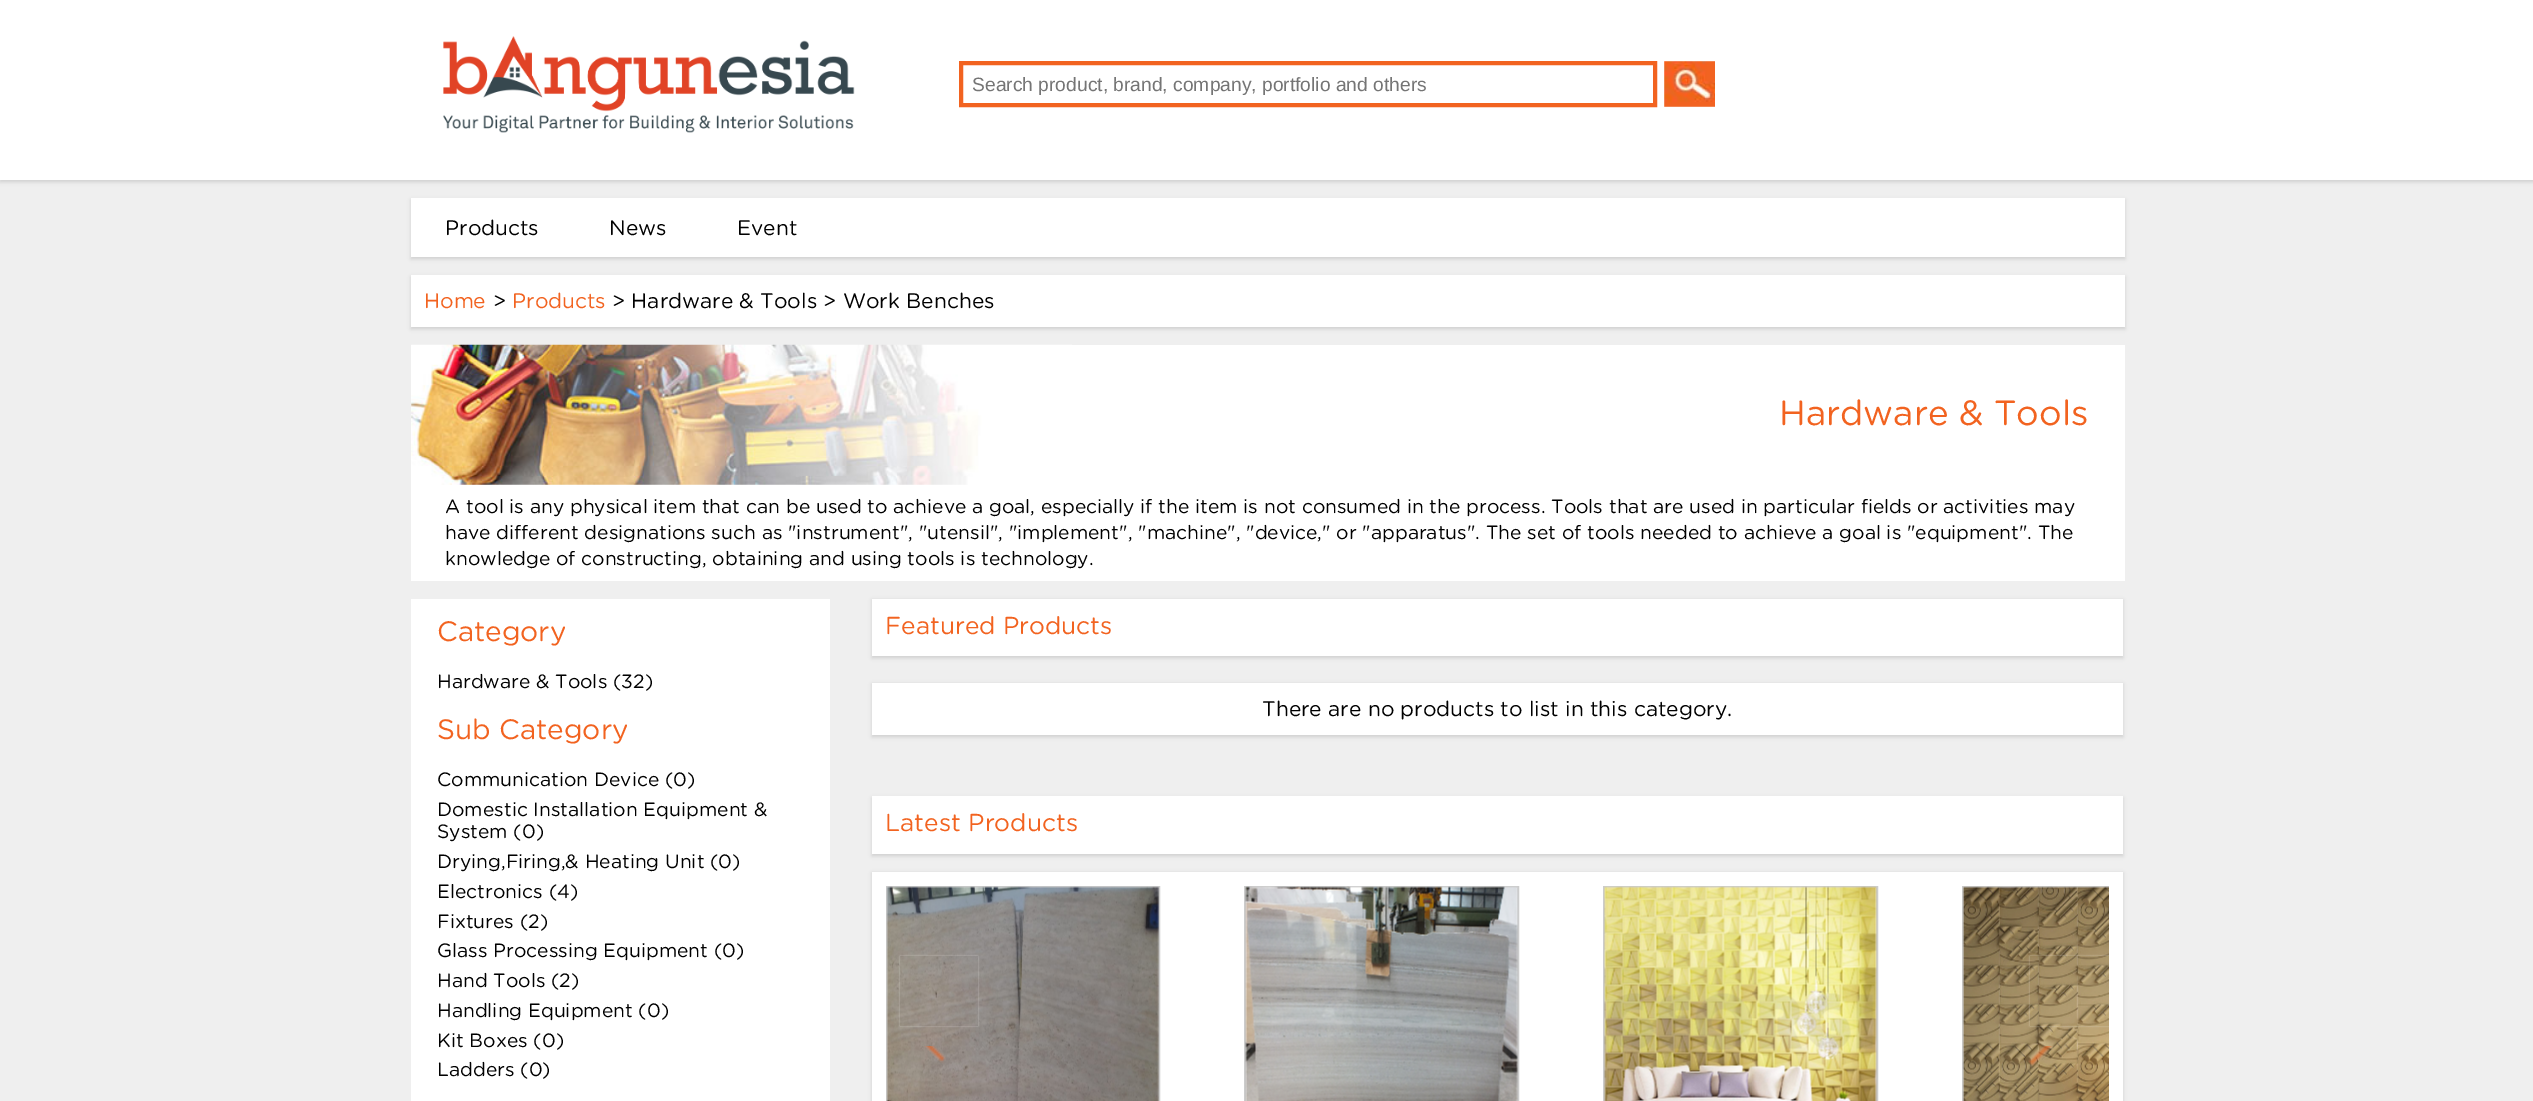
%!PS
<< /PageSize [2533 1101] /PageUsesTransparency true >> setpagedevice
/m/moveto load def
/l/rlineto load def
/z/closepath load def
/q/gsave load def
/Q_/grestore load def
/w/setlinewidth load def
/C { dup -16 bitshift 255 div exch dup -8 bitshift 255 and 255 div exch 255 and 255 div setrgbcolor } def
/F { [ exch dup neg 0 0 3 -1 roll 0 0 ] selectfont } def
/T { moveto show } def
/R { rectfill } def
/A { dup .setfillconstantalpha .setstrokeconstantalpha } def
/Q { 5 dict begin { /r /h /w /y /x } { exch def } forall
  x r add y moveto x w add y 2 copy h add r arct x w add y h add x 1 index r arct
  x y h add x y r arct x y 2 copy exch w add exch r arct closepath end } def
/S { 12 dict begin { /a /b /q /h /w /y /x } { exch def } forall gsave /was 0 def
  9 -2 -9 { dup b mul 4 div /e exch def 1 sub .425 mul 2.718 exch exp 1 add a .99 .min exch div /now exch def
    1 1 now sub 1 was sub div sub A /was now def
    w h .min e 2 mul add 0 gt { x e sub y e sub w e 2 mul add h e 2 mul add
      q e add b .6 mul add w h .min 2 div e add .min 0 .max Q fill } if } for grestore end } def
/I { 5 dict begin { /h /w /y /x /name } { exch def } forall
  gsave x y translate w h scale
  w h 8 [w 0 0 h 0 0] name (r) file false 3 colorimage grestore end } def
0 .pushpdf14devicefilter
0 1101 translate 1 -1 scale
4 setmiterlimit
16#EFEFEF C
0 0 2533 1101 R
16#CECECE C
0 2 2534 180 0 2 1 S
16#FFFFFF C
0 0 2533 180 R
(1.rgb) 443 36 412 97 I
16#F26320 C
4 w
961 63 694 42 rectstroke
/LiberationSans-Regular 19.25 F
16#757575 C
(Search product, brand, company, portfolio and others) 972 91 T
16#EFEFEF C
1664 61 51 46 R
(2.rgb) 1664 61 51 46 I
16#CECECE C
411 200 1714 59 0 2 1 S
16#FFFFFF C
411 198 1714 59 R
/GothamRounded-Regular 21 F
16#000000 C
(Products) 445 235 T
(News) 609 235 T
(Event) 737 235 T
16#CECECE C
411 277 1714 52 0 2 1 S
16#FFFFFF C
411 275 1714 52 R
16#F26320 C
(Home) 424 308 T
16#000000 C
(>) 493 308 T
16#F26320 C
(Products) 512 308 T
16#000000 C
(> Hardware & Tools > Work Benches) 612 308 T
16#FFFFFF C
411 345 1714 236 R
(3.rgb) 411 344 661 141 I
/GothamRounded-Regular 35 F
16#F26320 C
(Hardware & Tools) 1779 425 T
/GothamRounded-Regular 19.25 F
16#000000 C
(A tool is any physical item that can be used to achieve a goal, especially if the item is not consumed in the process. Tools that are used in particular fields or activities may) 445 513 T
(have different designations such as "instrument", "utensil", "implement", "machine", "device," or "apparatus". The set of tools needed to achieve a goal is "equipment". The) 445 539 T
(knowledge of constructing, obtaining and using tools is technology.) 445 565 T
16#FFFFFF C
411 599 419 502 R
/GothamRounded-Regular 28 F
16#F26320 C
(Category) 437 641 T
/GothamRounded-Regular 19.25 F
16#000000 C
(Hardware & Tools \(32\)) 437 688 T
/GothamRounded-Regular 28 F
16#F26320 C
(Sub Category) 437 739 T
/GothamRounded-Regular 19.25 F
16#000000 C
(Communication Device \(0\)) 437 786 T
(Domestic Installation Equipment &) 437 816 T
(System \(0\)) 437 838 T
(Drying,Firing,& Heating Unit \(0\)) 437 868 T
(Electronics \(4\)) 437 898 T
(Fixtures \(2\)) 437 928 T
(Glass Processing Equipment \(0\)) 437 957 T
(Hand Tools \(2\)) 437 987 T
(Handling Equipment \(0\)) 437 1017 T
(Kit Boxes \(0\)) 437 1047 T
(Ladders \(0\)) 437 1076 T
16#CECECE C
872 600 1251 58 0 2 1 S
16#FFFFFF C
872 599 1251 57 R
/GothamRounded-Regular 24.5 F
16#F26320 C
(Featured Products) 885 634 T
16#CECECE C
872 684 1251 53 0 2 1 S
16#FFFFFF C
872 683 1251 52 R
/GothamRounded-Regular 21 F
16#000000 C
(There are no products to list in this category.) 1262 716 T
16#CECECE C
872 798 1251 58 0 2 1 S
16#FFFFFF C
872 796 1251 58 R
/GothamRounded-Regular 24.5 F
16#F26320 C
(Latest Products) 885 831 T
16#CECECE C
872 873 1251 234 0 2 1 S
16#FFFFFF C
872 872 1251 229 R
16#CCCCCC C
2 w
887 887 272 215 rectstroke
(4.rgb) 886 886 273 215 I
1245 887 273 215 rectstroke
(5.rgb) 1245 886 273 215 I
1604 887 273 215 rectstroke
(6.rgb) 1604 886 273 215 I
q
886 886 1223 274 rectclip
1963 887 273 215 rectstroke
Q_
(7.rgb) 1962 886 147 215 I
q
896 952 m 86 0 l 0 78 l -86 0 l z 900 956 m 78 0 l 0 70 l -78 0 l z eoclip newpath
16#FFFFFF C
900 956 78 70 0 1 .4 S
Q_
(8.rgb) 924 1046 22 17 I
q
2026 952 m 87 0 l 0 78 l -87 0 l z 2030 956 m 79 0 l 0 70 l -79 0 l z eoclip newpath
16#FFFFFF C
2030 956 79 70 0 1 .4 S
Q_
(9.rgb) 2028 1046 25 20 I
.poppdf14devicefilter showpage
